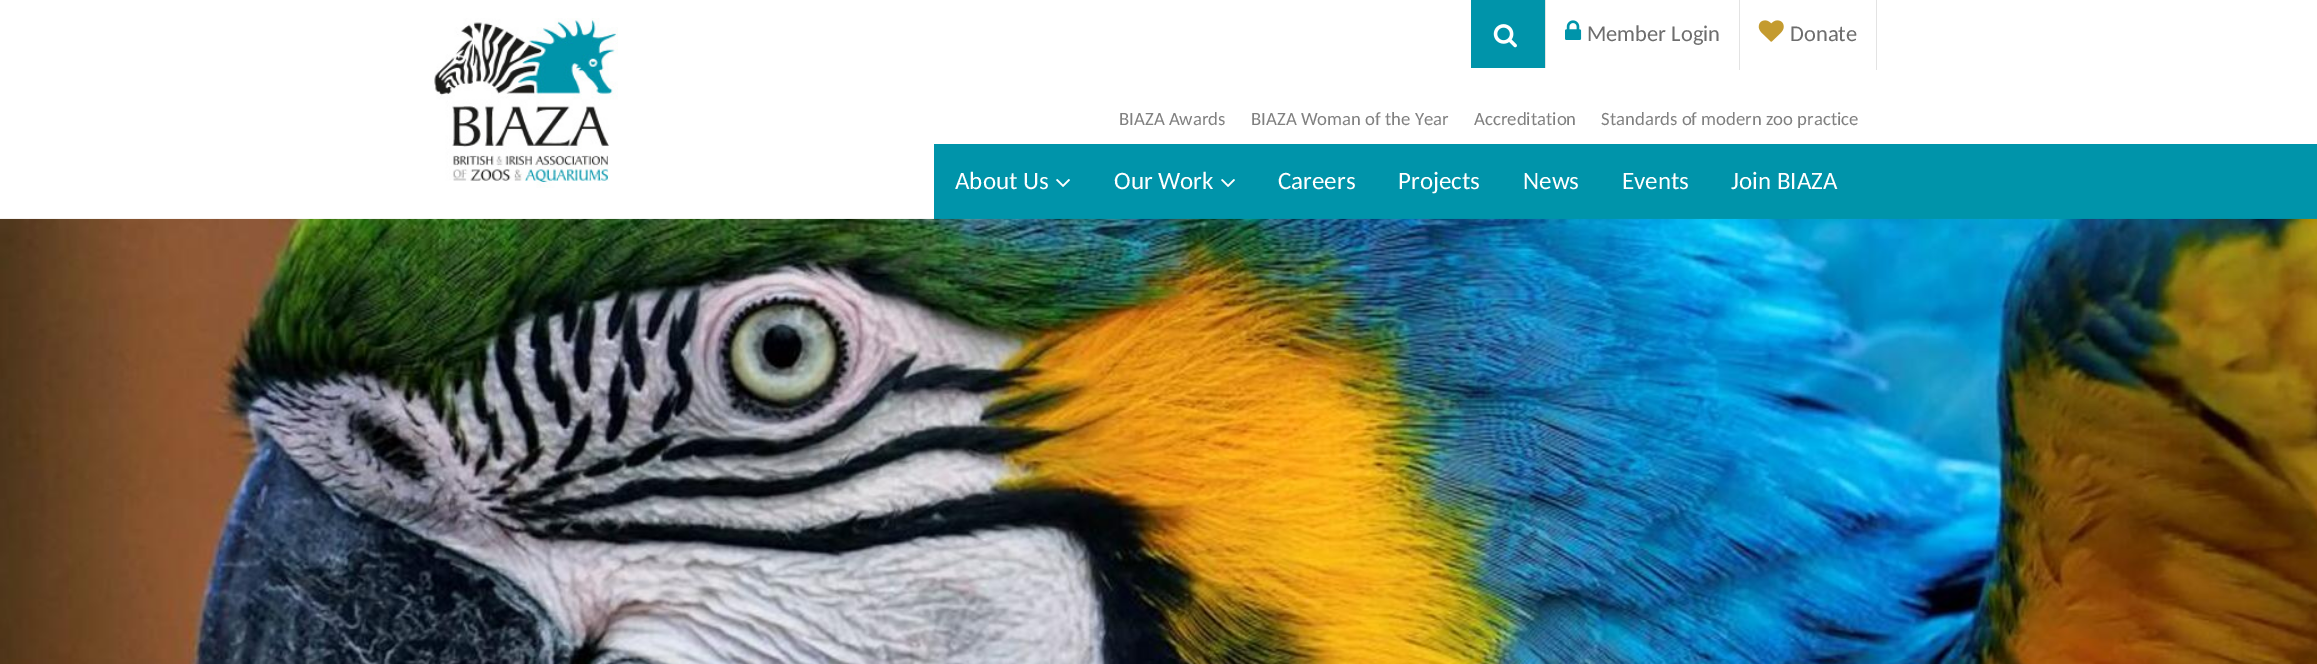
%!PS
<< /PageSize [2317 664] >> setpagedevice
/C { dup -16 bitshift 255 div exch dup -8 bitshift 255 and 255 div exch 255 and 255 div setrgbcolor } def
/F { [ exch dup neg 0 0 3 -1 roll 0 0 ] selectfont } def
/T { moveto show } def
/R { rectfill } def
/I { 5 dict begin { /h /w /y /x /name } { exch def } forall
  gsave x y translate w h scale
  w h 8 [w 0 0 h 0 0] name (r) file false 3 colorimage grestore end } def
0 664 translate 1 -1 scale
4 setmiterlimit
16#FFFFFF C
0 0 2317 664 R
(1.rgb) 434 18 184 170 I
16#0094AA C
1471 0 74 68 R
16#E3E3E3 C
1545 0 1 68 R
(2.rgb) 1493 24 24 24 I
1739 0 1 70 R
(3.rgb) 1565 20 17 20 I
/Carlito-Regular 22.5 F
16#6D6D6D C
(Member Login) 1587 41 T
16#E3E3E3 C
1876 0 1 70 R
(4.rgb) 1758 20 26 22 I
16#6D6D6D C
(Donate) 1790 41 T
/Carlito-Regular 18.75 F
16#808080 C
(BIAZA Awards) 1119 125 T
(BIAZA Woman of the Year) 1251 125 T
(Accreditation) 1474 125 T
(Standards of modern zoo practice) 1601 125 T
16#0094AA C
934 144 1383 75 R
/Carlito-Regular 25 F
16#FFFFFF C
(About Us) 955 189 T
(5.rgb) 1056 179 14 8 I
(Our Work) 1114 189 T
(5.rgb) 1221 179 14 8 I
(Careers) 1278 189 T
(Projects) 1398 189 T
(News) 1523 189 T
(Events) 1622 189 T
(Join BIAZA) 1731 189 T
(6.rgb) 0 218 2317 446 I
showpage
